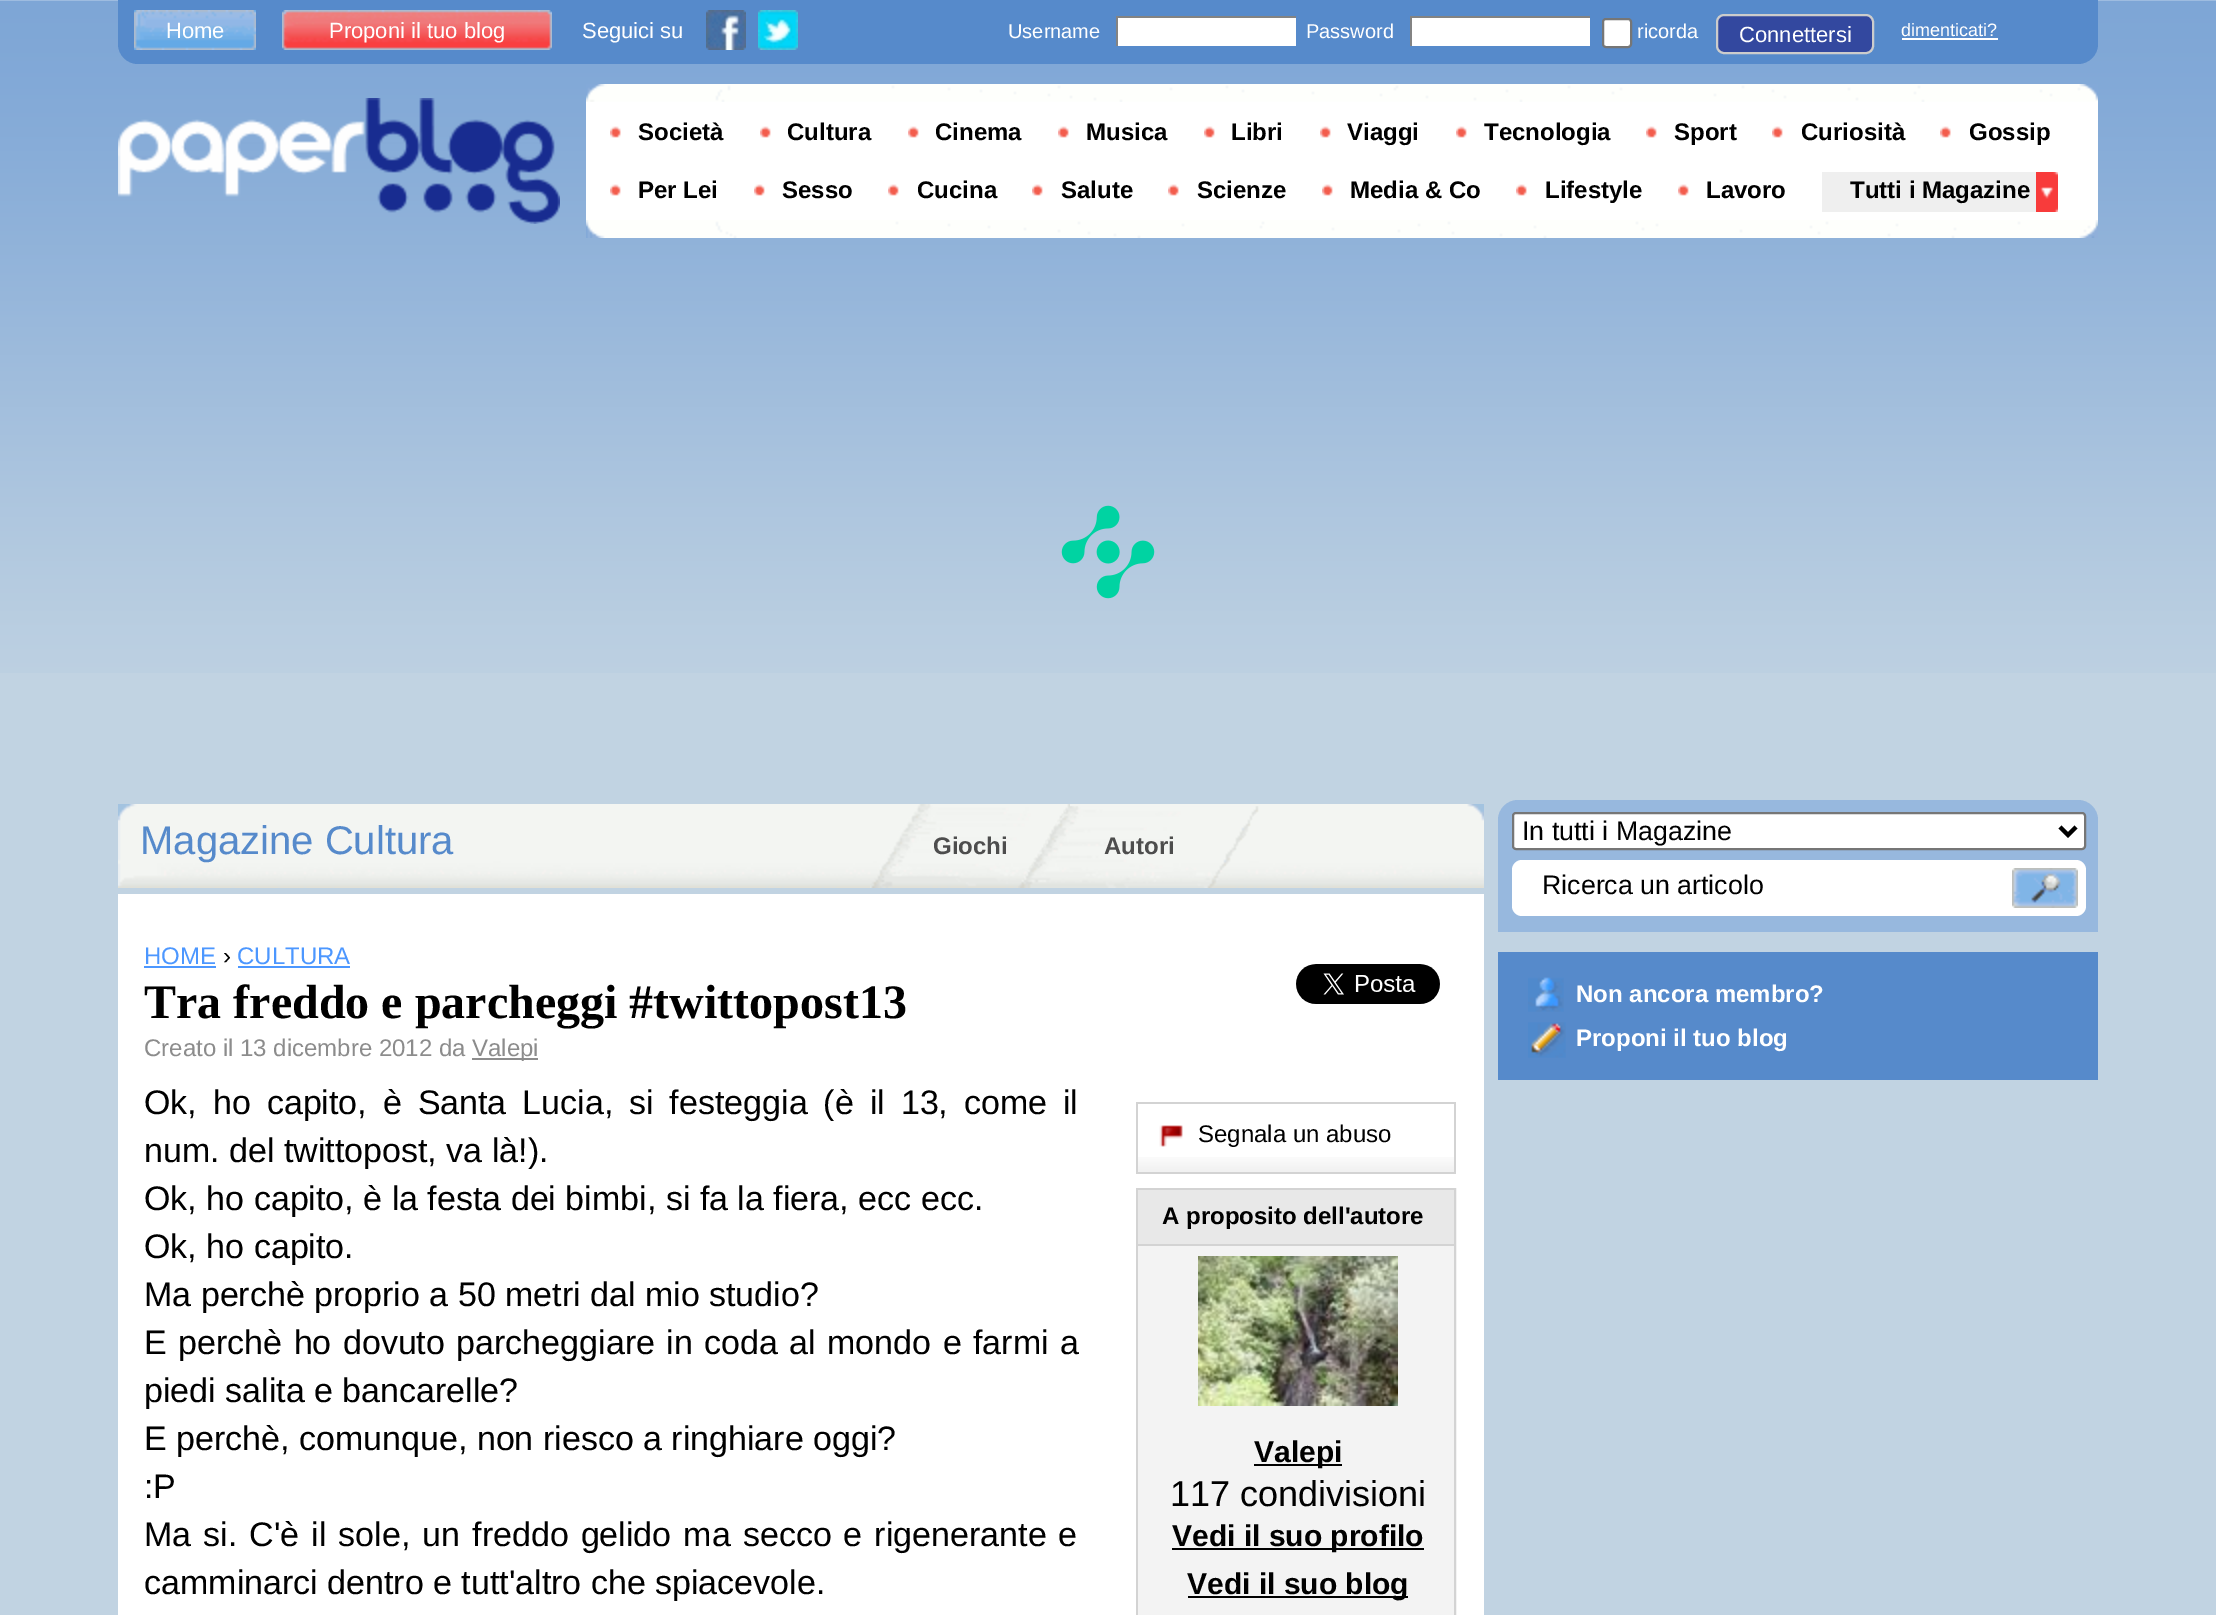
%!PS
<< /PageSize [2216 1615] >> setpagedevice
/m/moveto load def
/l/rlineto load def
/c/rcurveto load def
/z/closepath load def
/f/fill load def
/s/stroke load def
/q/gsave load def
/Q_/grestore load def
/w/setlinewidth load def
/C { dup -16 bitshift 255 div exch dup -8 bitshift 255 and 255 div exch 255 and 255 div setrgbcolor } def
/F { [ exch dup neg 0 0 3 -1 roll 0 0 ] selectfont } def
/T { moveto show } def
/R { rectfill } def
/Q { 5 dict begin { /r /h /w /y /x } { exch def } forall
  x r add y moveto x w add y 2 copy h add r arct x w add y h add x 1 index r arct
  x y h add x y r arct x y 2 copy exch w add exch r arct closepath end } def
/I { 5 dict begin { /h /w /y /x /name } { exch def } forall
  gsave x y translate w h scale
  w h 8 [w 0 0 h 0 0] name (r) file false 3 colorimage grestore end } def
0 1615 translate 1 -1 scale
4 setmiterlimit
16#C1D3E2 C
0 0 2216 1615 R
(1.rgb) 0 0 2216 673 I
16#568ACB C
118 0 m 1980 0 l 0 44 l 0 11 -9 20 -20 20 c -1940 0 l -11 0 -20 -9 -20 -20 c z f
(2.rgb) 134 10 122 40 I
/LiberationSans-Regular 22 F
16#FFFFFF C
(Home) 166 38 T
(3.rgb) 282 10 270 40 I
(Proponi il tuo blog) 329 38 T
(Seguici su) 582 38 T
(4.rgb) 706 10 40 40 I
(5.rgb) 758 10 40 40 I
/LiberationSans-Regular 20 F
(Username) 1008 38 T
1118 18 178 28 R
16#838383 C
1116 16 180 2 R
1116 16 2 30 R
16#FFFFFF C
(Password) 1306 38 T
1412 18 178 28 R
16#838383 C
1410 16 180 2 R
1410 16 2 30 R
16#FFFFFF C
1603 19 28 28 3 Q q f Q_
16#767676 C
2 w
s
16#FFFFFF C
(ricorda) 1637 38 T
16#33489F C
1717 15 156 38 7 Q q f Q_
16#CCCCCC C
s
/LiberationSans-Regular 22 F
16#FFFFFF C
(Connettersi) 1739 42 T
/LiberationSans-Regular 18 F
(dimenticati?) 1901 36 T
1902 38 96 2 R
(6.rgb) 118 98 442 126 I
586 101 1512 119 R
(7.rgb) 586 84 1512 18 I
(8.rgb) 586 220 1512 18 I
(9.rgb) 610 126 11 12 I
/LiberationSans-Bold 24 F
16#000000 C
(Società) 638 140 T
(10.rgb) 760 126 11 12 I
(Cultura) 787 140 T
(10.rgb) 908 126 11 12 I
(Cinema) 935 140 T
(9.rgb) 1058 126 11 12 I
(Musica) 1086 140 T
(10.rgb) 1204 126 11 12 I
(Libri) 1231 140 T
(10.rgb) 1320 126 11 12 I
(Viaggi) 1347 140 T
(10.rgb) 1456 126 11 12 I
(Tecnologia) 1484 140 T
(10.rgb) 1646 126 11 12 I
(Sport) 1674 140 T
(10.rgb) 1772 126 11 12 I
(Curiosità) 1801 140 T
(9.rgb) 1940 126 11 12 I
(Gossip) 1969 140 T
(10.rgb) 610 184 11 12 I
(Per Lei) 638 198 T
(10.rgb) 754 184 11 12 I
(Sesso) 782 198 T
(10.rgb) 888 184 11 12 I
(Cucina) 917 198 T
(10.rgb) 1032 184 11 12 I
(Salute) 1061 198 T
(9.rgb) 1168 184 11 12 I
(Scienze) 1197 198 T
(10.rgb) 1322 184 11 12 I
(Media & Co) 1350 198 T
(9.rgb) 1516 184 11 12 I
(Lifestyle) 1545 198 T
(10.rgb) 1678 184 11 12 I
(Lavoro) 1706 198 T
16#EFEFEF C
1822 172 214 40 R
(11.rgb) 2036 172 22 40 I
16#000000 C
(Tutti i Magazine) 1850 198 T
(12.rgb) 1061 505 94 94 I
(13.rgb) 118 804 1366 84 I
/LiberationSans-Regular 40 F
16#568ACB C
(Magazine Cultura) 140 854 T
(14.rgb) 870 804 200 84 I
/LiberationSans-Bold 24 F
16#4D4D4D C
(Giochi) 933 854 T
(15.rgb) 1018 806 241 82 I
(Autori) 1104 854 T
16#FFFFFF C
118 894 1366 721 R
/LiberationSans-Regular 24 F
16#4C97FF C
(HOME) 144 964 T
144 966 72 2 R
16#000000 C
(›) 223 964 T
16#4C97FF C
(CULTURA) 237 964 T
238 966 112 2 R
/LiberationSerif-Bold 48 F
16#000000 C
(Tra freddo e parcheggi #twittopost13) 144 1018 T
/LiberationSans-Regular 24 F
16#8C8C8C C
(Creato il 13 dicembre 2012 da) 144 1056 T
472 1058 66 2 R
(Valepi) 472 1056 T
/LiberationSans-Regular 34 F
16#000000 C
144 1114 m 6.5 0 32 (Ok, ho capito, è Santa Lucia, si festeggia \(è il 13, come il) widthshow
(num. del twittopost, va là!\).) 144 1162 T
(Ok, ho capito, è la festa dei bimbi, si fa la fiera, ecc ecc.) 144 1210 T
(Ok, ho capito.) 144 1258 T
(Ma perchè proprio a 50 metri dal mio studio?) 144 1306 T
144 1354 m 2 0 32 (E perchè ho dovuto parcheggiare in coda al mondo e farmi a) widthshow
(piedi salita e bancarelle?) 144 1402 T
(E perchè, comunque, non riesco a ringhiare oggi?) 144 1450 T
(:P) 144 1498 T
144 1546 m 2.6 0 32 (Ma si. C'è il sole, un freddo gelido ma secco e rigenerante e) widthshow
(camminarci dentro e tutt'altro che spiacevole.) 144 1594 T
(16.rgb) 1296 964 144 40 I
16#D3D3D3 C
1136 1102 320 2 R
1454 1102 2 72 R
1136 1102 2 72 R
(17.rgb) 1138 1157 316 15 I
1138 1172 316 2 R
(18.rgb) 1159 1125 24 22 I
/LiberationSans-Regular 24 F
16#000000 C
(Segnala un abuso) 1198 1142 T
16#D3D3D3 C
1137 1189 318 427 rectstroke
16#F3F3F3 C
1138 1246 316 369 R
16#E8E8E8 C
1138 1190 316 54 R
16#D3D3D3 C
1138 1244 316 2 R
/LiberationSans-Bold 24 F
16#000000 C
(A proposito dell'autore) 1162 1224 T
(19.rgb) 1198 1256 200 150 I
1254 1464 88 2 R
/LiberationSans-Bold 30 F
(Valepi) 1254 1462 T
/LiberationSans-Regular 36 F
(117 condivisioni) 1170 1506 T
1172 1548 252 2 R
/LiberationSans-Bold 30 F
(Vedi il suo profilo) 1172 1546 T
1188 1596 220 2 R
(Vedi il suo blog) 1187 1594 T
16#97B8DE C
1518 800 m 560 0 l 11 0 20 9 20 20 c 0 112 l -600 0 l 0 -112 l 0 -11 9 -20 20 -20 c z f
16#FFFFFF C
1513 813 572 36 3 Q q f Q_
16#767676 C
s
16#000000 C
4 w
2060 827 m 8 8 l 8 -8 l s
/LiberationSans-Regular 26.75 F
(In tutti i Magazine) 1522 840 T
16#FFFFFF C
1512 860 574 56 10 Q f
16#000000 C
(Ricerca un articolo) 1542 894 T
(20.rgb) 2012 868 66 40 I
16#568ACB C
1498 952 600 128 R
(21.rgb) 1528 977 36 35 I
/LiberationSans-Bold 24 F
16#FFFFFF C
(Non ancora membro?) 1576 1002 T
(22.rgb) 1528 1022 38 36 I
(Proponi il tuo blog) 1576 1046 T
showpage
